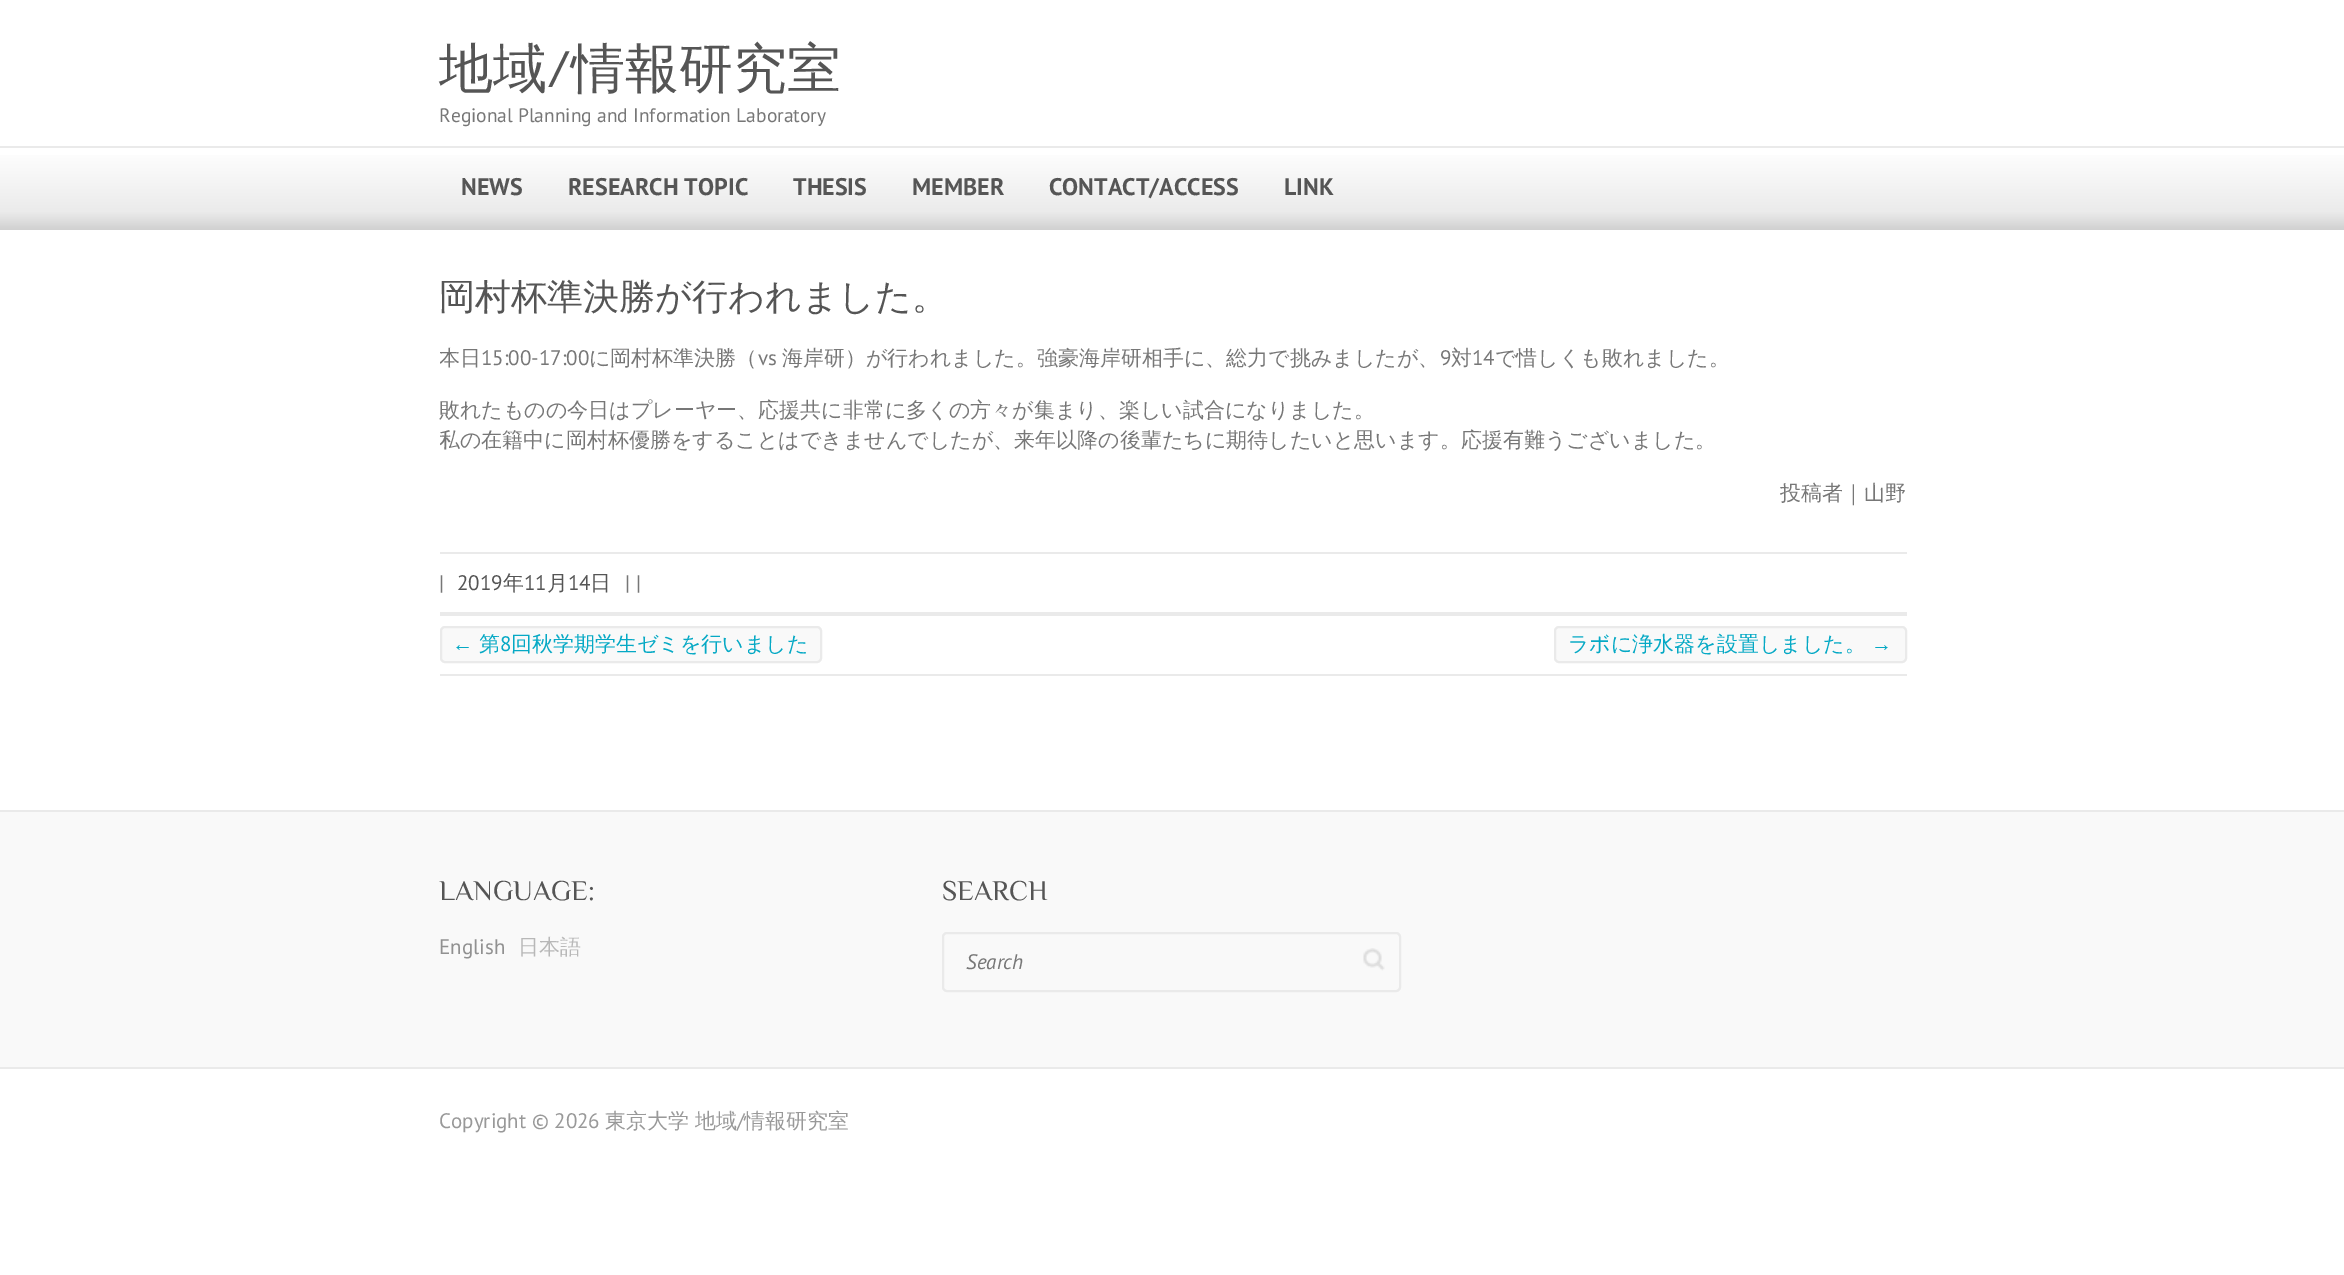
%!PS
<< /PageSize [2344 1275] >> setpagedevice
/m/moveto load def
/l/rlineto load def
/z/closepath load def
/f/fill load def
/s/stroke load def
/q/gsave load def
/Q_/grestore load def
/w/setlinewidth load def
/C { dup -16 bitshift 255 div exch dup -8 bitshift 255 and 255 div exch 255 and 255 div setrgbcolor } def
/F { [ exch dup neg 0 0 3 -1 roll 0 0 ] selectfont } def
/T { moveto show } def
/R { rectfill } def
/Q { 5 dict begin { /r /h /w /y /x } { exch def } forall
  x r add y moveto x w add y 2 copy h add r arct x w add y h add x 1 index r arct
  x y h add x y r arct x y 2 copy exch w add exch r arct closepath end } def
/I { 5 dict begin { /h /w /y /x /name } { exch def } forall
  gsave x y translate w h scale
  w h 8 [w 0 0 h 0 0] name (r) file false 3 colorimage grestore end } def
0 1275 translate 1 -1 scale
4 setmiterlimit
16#FFFFFF C
0 0 2344 1275 R
/WenQuanYiZenHei-Medium 54 F
16#555555 C
(地域) 439 87 T
/Philosopher-Regular 54 F
(/) 547 87 T
/WenQuanYiZenHei-Medium 54 F
(情報研究室) 571 87 T
/PTSans-Regular 19.5 F
16#777777 C
(Regional Planning and Information Laboratory) 439 122 T
q 0 155 m 2344 0 l 0 75 l -2344 0 l z clip newpath
<< /ShadingType 2 /ColorSpace /DeviceRGB /Coords [1172 147 1172 230] /Extend [true true] /Function << /FunctionType 3 /Domain [0 1] /Functions [<< /FunctionType 2 /Domain [0 1] /C0 [1 1 1] /C1 [.922 .922 .922] /N 1 >> << /FunctionType 2 /Domain [0 1] /C0 [.922 .922 .922] /C1 [.82 .82 .82] /N 1 >> << /FunctionType 2 /Domain [0 1] /C0 [.82 .82 .82] /C1 [.82 .82 .82] /N 1 >>] /Bounds [.78 .99] /Encode [0 1 0 1 0 1] >> >> shfill Q_
16#EAEAEA C
0 146 2344 2 R
/PTSans-Bold 24 F
16#555555 C
(NEWS) 461 195 T
(RESEARCH TOPIC) 568 195 T
(THESIS) 793 195 T
(MEMBER) 912 195 T
(CONTACT/ACCESS) 1049 195 T
(LINK) 1284 195 T
/WenQuanYiZenHei-Medium 36 F
(岡村杯準決勝が行われました。) 439 309 T
q
440 342 1467 210 rectclip
/WenQuanYiZenHei-Medium 21 F
16#777777 C
(本日) 439 365 T
Q_
/PTSans-Regular 21 F
16#777777 C
(15:00-17:00) 481 365 T
/WenQuanYiZenHei-Medium 21 F
(に岡村杯準決勝（) 589 365 T
/PTSans-Regular 21 F
(vs) 758 365 T
/WenQuanYiZenHei-Medium 21 F
(海岸研）が行われました。強豪海岸研相手に、総力で挑みましたが、) 782 365 T
/PTSans-Regular 21 F
(9) 1440 365 T
/WenQuanYiZenHei-Medium 21 F
(対) 1451 365 T
/PTSans-Regular 21 F
(14) 1472 365 T
/WenQuanYiZenHei-Medium 21 F
(で惜しくも敗れました。) 1495 365 T
(敗れたものの今日はプレーヤー、応援共に非常に多くの方々が集まり、楽しい試合になりました。) 439 417 T
q
440 342 1467 210 rectclip
(私の在籍中に岡村杯優勝をすることはできませんでしたが、来年以降の後輩たちに期待したいと思います。応援有難うございました。) 439 447 T
Q_
(投稿者｜山野) 1780 500 T
16#EAEAEA C
440 552 1467 2 R
440 612 1467 4 R
/PTSans-Regular 21 F
16#777777 C
(|) 439 590 T
16#555555 C
(2019) 457 590 T
/WenQuanYiZenHei-Medium 21 F
(年) 503 590 T
/PTSans-Regular 21 F
(11) 524 590 T
/WenQuanYiZenHei-Medium 21 F
(月) 547 590 T
/PTSans-Regular 21 F
(14) 568 590 T
/WenQuanYiZenHei-Medium 21 F
(日) 590 590 T
/PTSans-Regular 21 F
16#777777 C
(| |) 625 590 T
16#EAEAEA C
440 674 1467 2 R
16#F9F9F9 C
441 627 380 35 4 Q q f Q_
16#EAEAEA C
2 w
s
/LiberationSans-Regular 21 F
16#05A9C5 C
(←) 452 651 T
/WenQuanYiZenHei-Medium 21 F
(第) 479 651 T
/PTSans-Regular 21 F
(8) 500 651 T
/WenQuanYiZenHei-Medium 21 F
(回秋学期学生ゼミを行いました) 511 651 T
16#F9F9F9 C
1555 627 351 35 4 Q q f Q_
16#EAEAEA C
s
16#05A9C5 C
(ラボに浄水器を設置しました。) 1568 651 T
/LiberationSans-Regular 21 F
(→) 1871 651 T
16#F9F9F9 C
0 812 2344 255 R
16#EAEAEA C
0 810 2344 2 R
/Philosopher-Regular 28.5 F
16#555555 C
(LANGUAGE:) 439 900 T
/PTSans-Regular 21 F
16#919191 C
(English) 439 954 T
/WenQuanYiZenHei-Medium 21 F
16#B8B8B8 C
(日本語) 518 954 T
/Philosopher-Regular 28.5 F
16#555555 C
(SEARCH) 942 900 T
(1.rgb) 1363 948 22 23 I
16#EAEAEA C
943 933 457 58 4 Q s
/PTSans-Italic 21 F
16#777777 C
(Search) 966 969 T
16#EAEAEA C
0 1067 2344 2 R
/PTSans-Regular 21 F
16#999999 C
(Copyright © 2026) 439 1128 T
/WenQuanYiZenHei-Medium 21 F
(東京大学) 605 1128 T
(地域) 695 1128 T
/PTSans-Regular 21 F
(/) 737 1128 T
/WenQuanYiZenHei-Medium 21 F
(情報研究室) 744 1128 T
showpage
